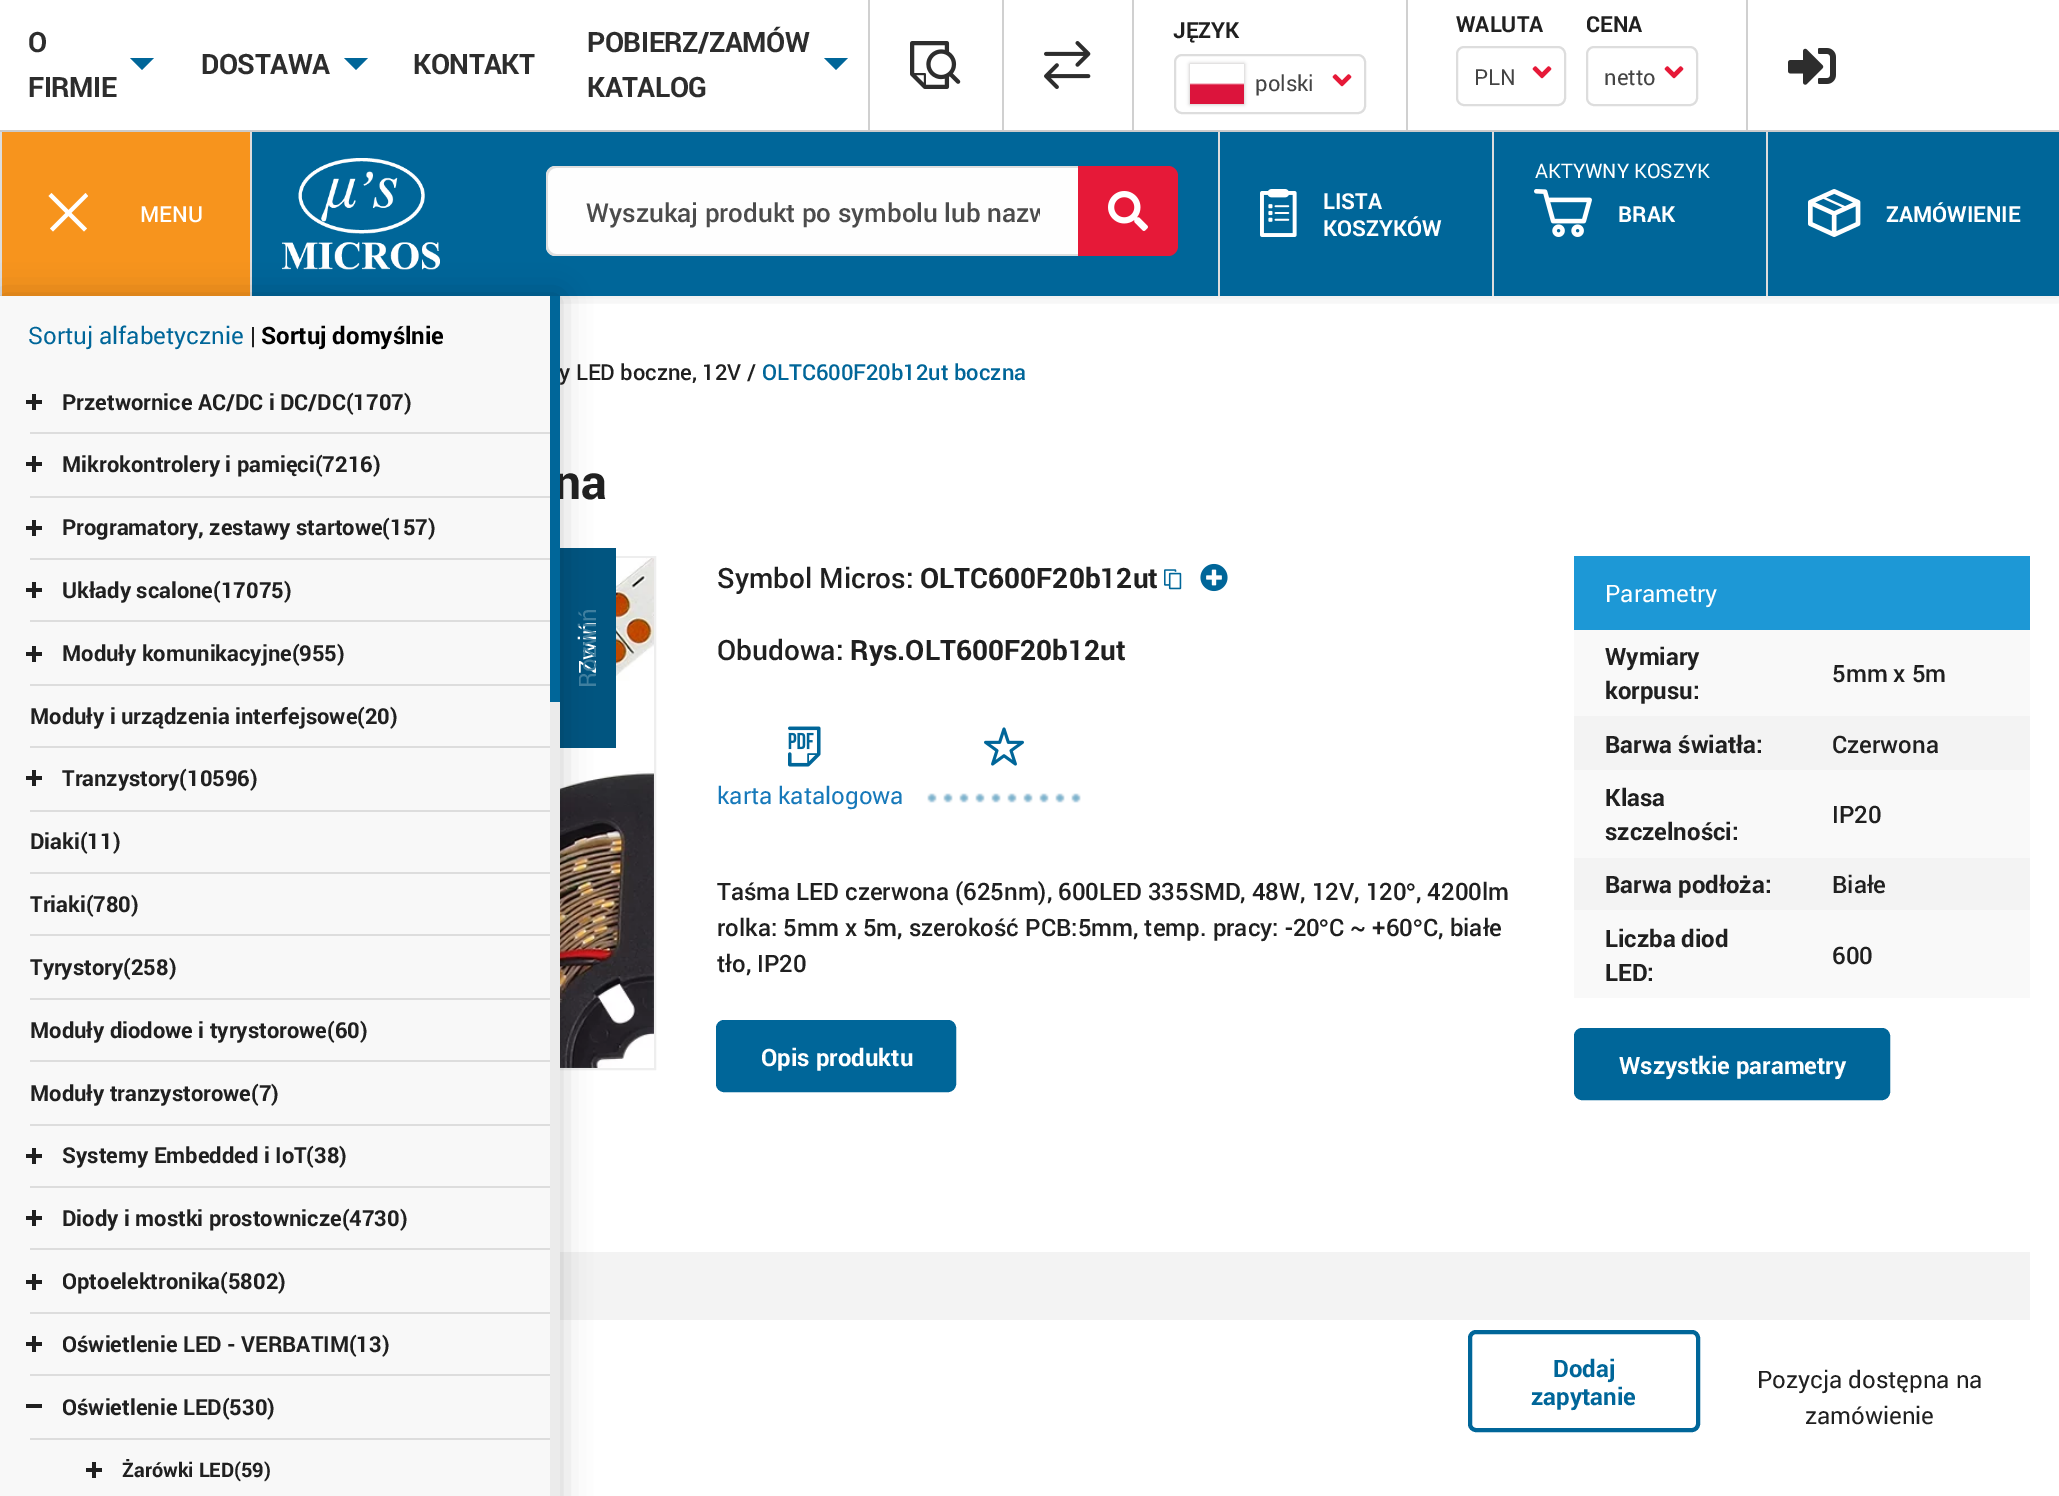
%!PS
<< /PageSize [2059 1496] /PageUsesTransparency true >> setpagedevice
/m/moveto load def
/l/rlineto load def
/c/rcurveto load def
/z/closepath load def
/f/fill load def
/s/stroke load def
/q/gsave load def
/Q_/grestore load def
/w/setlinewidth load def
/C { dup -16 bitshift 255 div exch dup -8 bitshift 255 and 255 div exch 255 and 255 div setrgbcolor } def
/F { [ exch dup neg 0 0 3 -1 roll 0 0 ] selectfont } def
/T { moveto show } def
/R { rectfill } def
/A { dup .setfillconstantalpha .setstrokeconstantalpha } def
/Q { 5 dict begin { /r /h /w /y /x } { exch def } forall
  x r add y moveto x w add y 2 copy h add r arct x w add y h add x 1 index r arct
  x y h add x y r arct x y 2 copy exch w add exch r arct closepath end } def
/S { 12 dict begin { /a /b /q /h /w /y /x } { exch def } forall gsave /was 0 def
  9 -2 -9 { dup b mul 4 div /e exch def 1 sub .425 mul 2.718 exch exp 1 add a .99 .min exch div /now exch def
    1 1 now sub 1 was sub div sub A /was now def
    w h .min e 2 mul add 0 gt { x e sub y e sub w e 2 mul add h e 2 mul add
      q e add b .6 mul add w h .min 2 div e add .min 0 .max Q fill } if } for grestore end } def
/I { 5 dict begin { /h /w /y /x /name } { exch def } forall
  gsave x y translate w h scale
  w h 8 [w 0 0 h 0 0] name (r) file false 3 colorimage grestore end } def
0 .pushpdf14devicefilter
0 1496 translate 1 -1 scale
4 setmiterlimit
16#FFFFFF C
0 0 2059 1496 R
q
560 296 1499 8 rectclip
16#000000 C
0 0 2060 296 0 10 .1 S
Q_
16#CBCBCB C
0 130 2059 2 R
/Roboto-Bold 28 F
16#2D2D2D C
28 52 m -.5 0 (O) ashow
16#006699 C
130 58 m 24 0 l -12 12 l z f
16#2D2D2D C
28 97 m -.5 0 (FIRMIE) ashow
201 74 m -.5 0 (DOSTAWA) ashow
16#006699 C
344 58 m 24 0 l -12 12 l z f
16#2D2D2D C
413 74 m -.5 0 (KONTAKT) ashow
587 52 m -.5 0 (POBIERZ/ZAMÓW) ashow
16#006699 C
824 58 m 24 0 l -12 12 l z f
16#2D2D2D C
587 97 m -.5 0 (KATALOG) ashow
16#D0D0D0 C
868 0 2 130 R
(1.rgb) 910 41 51 48 I
1002 0 2 130 R
(2.rgb) 1044 41 47 48 I
1132 0 2 130 R
/Roboto-Bold 22 F
16#202020 C
(JĘZYK) 1173 38 T
16#DDDDDD C
2 w
1175 55 190 58 7 Q s
q
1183 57 m 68 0 l 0 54 l -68 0 l z 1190 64 m 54 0 l 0 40 l -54 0 l z eoclip newpath
16#B9B6B6 C
1190 64 54 40 0 2 1 S
Q_
(3.rgb) 1190 83 54 21 I
/Roboto-Regular 22 F
16#444444 C
(polski) 1255 91 T
(4.rgb) 1332 74 20 13 I
16#D0D0D0 C
1406 0 2 130 R
/Roboto-Bold 22 F
16#202020 C
(WALUTA) 1456 32 T
16#DDDDDD C
1457 47 108 58 7 Q s
/Roboto-Regular 22 F
16#444444 C
(PLN) 1474 85 T
(4.rgb) 1532 66 20 13 I
/Roboto-Bold 22 F
16#202020 C
(CENA) 1586 32 T
16#DDDDDD C
1587 47 110 58 7 Q s
/Roboto-Regular 22 F
16#444444 C
(netto) 1604 85 T
(4.rgb) 1664 66 20 13 I
16#D0D0D0 C
1746 0 2 130 R
(5.rgb) 1788 48 48 37 I
16#006699 C
252 132 1807 164 R
16#DDDDDD C
250 132 2 164 R
0 132 2 164 R
16#F7941D C
2 132 248 164 R
16#FFFFFF C
51.5 193 m 35.5 35.5 l -3 3 l -35.5 -35.5 l z f
50 228.5 m 35.5 -35.5 l 2.5 3 l -35 35.5 l z f
/Roboto-Medium 22 F
(MENU) 140 222 T
(6.rgb) 282 158 158 112 I
16#FEFEFE C
556 166 m 522 0 l 0 90 l -522 0 l -5.5 0 -10 -4.5 -10 -10 c 0 -70 l 0 -5.5 4.5 -10 10 -10 c z f
16#DEDEDE C
556 166 m 522 0 l 0 90 l -522 0 l -6 0 -10 -4 -10 -10 c 0 -70 l 0 -6 4 -10 10 -10 c z 556 168 m 522 0 l 0 86 l -522 0 l -4 0 -8 -4 -8 -8 c 0 -70 l 0 -4 4 -8 8 -8 c z eofill
q
586 194 454 36 rectclip
/Roboto-Medium 26 F
16#4C4C4C C
(Wyszukaj produkt po symbolu lub nazw) 586 222 T
Q_
16#E61938 C
1078 166 m 90 0 l 5.5 0 10 4.5 10 10 c 0 70 l 0 5.5 -4.5 10 -10 10 c -90 0 l z f
(7.rgb) 1108 191 40 40 I
16#DDDDDD C
1218 132 2 164 R
(8.rgb) 1260 189 37 48 I
/Roboto-Bold 22 F
16#FFFFFF C
(LISTA) 1323 209 T
(KOSZYKÓW) 1323 236 T
16#DDDDDD C
1492 132 2 164 R
/Roboto-Regular 20 F
16#FFFFFF C
(AKTYWNY KOSZYK) 1535 178 T
(9.rgb) 1534 189 58 48 I
/Roboto-Bold 22 F
(BRAK) 1618 222 T
16#DDDDDD C
1766 132 2 164 R
(10.rgb) 1808 189 53 48 I
16#FFFFFF C
(ZAMÓWIENIE) 1886 222 T
16#EEEEEE C
31 557 624 512 rectstroke
(11.rgb) 560 558 94 510 I
16#015580 C
560 548 56 200 R
16#F3F3F3 C
560 1252 1470 68 R
16#000000 C
0 296 560 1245 0 15 .2 S
16#F8F8F8 C
0 296 550 1200 R
/Roboto-Regular 24 F
16#006699 C
(Sortuj alfabetycznie) 28 344 T
16#202020 C
(|) 250 344 T
/Roboto-Bold 24 F
16#000000 C
(Sortuj domyślnie) 261 344 T
16#DDDDDD C
30 432 520 2 R
16#202020 C
26 400 16 4 R
32 394 4 16 R
/Roboto-Bold 22 F
(Przetwornice AC/DC i DC/DC\(1707\)) 62 410 T
16#DDDDDD C
30 496 520 2 R
16#202020 C
26 462 16 4 R
32 456 4 16 R
(Mikrokontrolery i pamięci\(7216\)) 62 472 T
16#DDDDDD C
30 558 520 2 R
16#202020 C
26 526 16 4 R
32 520 4 16 R
(Programatory, zestawy startowe\(157\)) 62 535 T
16#DDDDDD C
30 620 520 2 R
16#202020 C
26 588 16 4 R
32 582 4 16 R
(Układy scalone\(17075\)) 62 598 T
16#DDDDDD C
30 684 520 2 R
16#202020 C
26 652 16 4 R
32 646 4 16 R
(Moduły komunikacyjne\(955\)) 62 661 T
16#DDDDDD C
30 746 520 2 R
16#202020 C
(Moduły i urządzenia interfejsowe\(20\)) 30 724 T
16#DDDDDD C
30 810 520 2 R
16#202020 C
26 776 16 4 R
32 770 4 16 R
(Tranzystory\(10596\)) 62 786 T
16#DDDDDD C
30 872 520 2 R
16#202020 C
(Diaki\(11\)) 30 849 T
16#DDDDDD C
30 934 520 2 R
16#202020 C
(Triaki\(780\)) 30 912 T
16#DDDDDD C
30 998 520 2 R
16#202020 C
(Tyrystory\(258\)) 30 975 T
16#DDDDDD C
30 1060 520 2 R
16#202020 C
(Moduły diodowe i tyrystorowe\(60\)) 30 1038 T
16#DDDDDD C
30 1124 520 2 R
16#202020 C
(Moduły tranzystorowe\(7\)) 30 1101 T
16#DDDDDD C
30 1186 520 2 R
16#202020 C
26 1154 16 4 R
32 1148 4 16 R
(Systemy Embedded i IoT\(38\)) 62 1163 T
16#DDDDDD C
30 1248 520 2 R
16#202020 C
26 1216 16 4 R
32 1210 4 16 R
(Diody i mostki prostownicze\(4730\)) 62 1226 T
16#DDDDDD C
30 1312 520 2 R
16#202020 C
26 1280 16 4 R
32 1274 4 16 R
(Optoelektronika\(5802\)) 62 1289 T
16#DDDDDD C
30 1374 520 2 R
16#202020 C
26 1342 16 4 R
32 1336 4 16 R
(Oświetlenie LED - VERBATIM\(13\)) 62 1352 T
16#DDDDDD C
30 1438 520 2 R
16#202020 C
26 1404 16 4 R
(Oświetlenie LED\(530\)) 62 1415 T
86 1468 16 4 R
92 1462 4 16 R
/Roboto-Bold 20 F
(Żarówki LED\(59\)) 122 1477 T
16#EBEBEB C
550 702 10 794 R
/Roboto-Medium 22 F
16#202020 C
(y LED boczne, 12V /) 559 380 T
/Roboto-Bold 48 F
(na) 554 499 T
16#006699 C
550 296 10 406 R
/Roboto-Regular 24 F
16#FFFFFF C
q 596 674 translate -90 rotate 0 0 m (Zwiń) show Q_
16#3F7F9F C
q 596 688 translate -90 rotate 0 0 m (Rozwiń) show Q_
/Roboto-Medium 22 F
16#006699 C
(OLTC600F20b12ut boczna) 762 380 T
/Roboto-Medium 28 F
16#202020 C
(Symbol Micros:) 717 588 T
/Roboto-Bold 28 F
(OLTC600F20b12ut) 920 588 T
(12.rgb) 1164 569 18 21 I
(13.rgb) 1200 563 28 29 I
/Roboto-Medium 28 F
(Obudowa:) 717 660 T
/Roboto-Bold 28 F
(Rys.OLT600F20b12ut) 850 660 T
(14.rgb) 788 726 33 41 I
/Roboto-Regular 24 F
16#1779BA C
(karta katalogowa) 717 804 T
(15.rgb) 984 727 40 39 I
(16.rgb) 927 793 154 10 I
/Roboto-Medium 24 F
16#202020 C
(Taśma LED czerwona \(625nm\), 600LED 335SMD, 48W, 12V, 120) 717 900 T
/LiberationSans-Bold 24 F
(°) 1406 900 T
/Roboto-Medium 24 F
(, 4200lm) 1416 900 T
(rolka: 5mm x 5m, szerokość PCB:5mm, temp. pracy: -20) 717 936 T
/LiberationSans-Bold 24 F
(°) 1319 936 T
/Roboto-Medium 24 F
(C ~ +60) 1329 936 T
/LiberationSans-Bold 24 F
(°) 1413 936 T
/Roboto-Medium 24 F
(C, białe) 1423 936 T
(tło, IP20) 717 972 T
16#006699 C
718 1022 236 68 6 Q q f Q_
4 w
s
/Roboto-Bold 24 F
16#FFFFFF C
(Opis produktu) 761 1066 T
16#1D98D6 C
1574 556 456 74 R
/Roboto-Regular 24 F
16#FFFFFF C
(Parametry) 1605 602 T
16#F9F9F9 C
1574 630 456 86 R
/Roboto-Bold 24 F
16#202020 C
(Wymiary) 1605 665 T
(korpusu:) 1605 699 T
/Roboto-Medium 24 F
(5mm x 5m) 1832 682 T
16#F3F3F3 C
1574 716 456 54 R
/Roboto-Bold 24 F
16#202020 C
(Barwa światła:) 1605 753 T
/Roboto-Medium 24 F
(Czerwona) 1832 753 T
16#F9F9F9 C
1574 770 456 88 R
/Roboto-Bold 24 F
16#202020 C
(Klasa) 1605 806 T
(szczelności:) 1605 840 T
/Roboto-Medium 24 F
(IP20) 1832 823 T
16#F3F3F3 C
1574 858 456 52 R
/Roboto-Bold 24 F
16#202020 C
(Barwa podłoża:) 1605 893 T
/Roboto-Medium 24 F
(Białe) 1832 893 T
16#F9F9F9 C
1574 910 456 88 R
/Roboto-Bold 24 F
16#202020 C
(Liczba diod) 1605 947 T
(LED:) 1605 981 T
/Roboto-Medium 24 F
(600) 1832 964 T
16#006699 C
1576 1030 312 68 6 Q q f Q_
s
/Roboto-Bold 24 F
16#FFFFFF C
(Wszystkie parametry) 1619 1074 T
16#006699 C
1470 1332 228 98 6 Q s
(Dodaj) 1553 1377 T
(zapytanie) 1531 1405 T
/Roboto-Regular 24 F
16#202020 C
(Pozycja dostępna na) 1757 1388 T
(zamówienie) 1805 1424 T
.poppdf14devicefilter showpage
